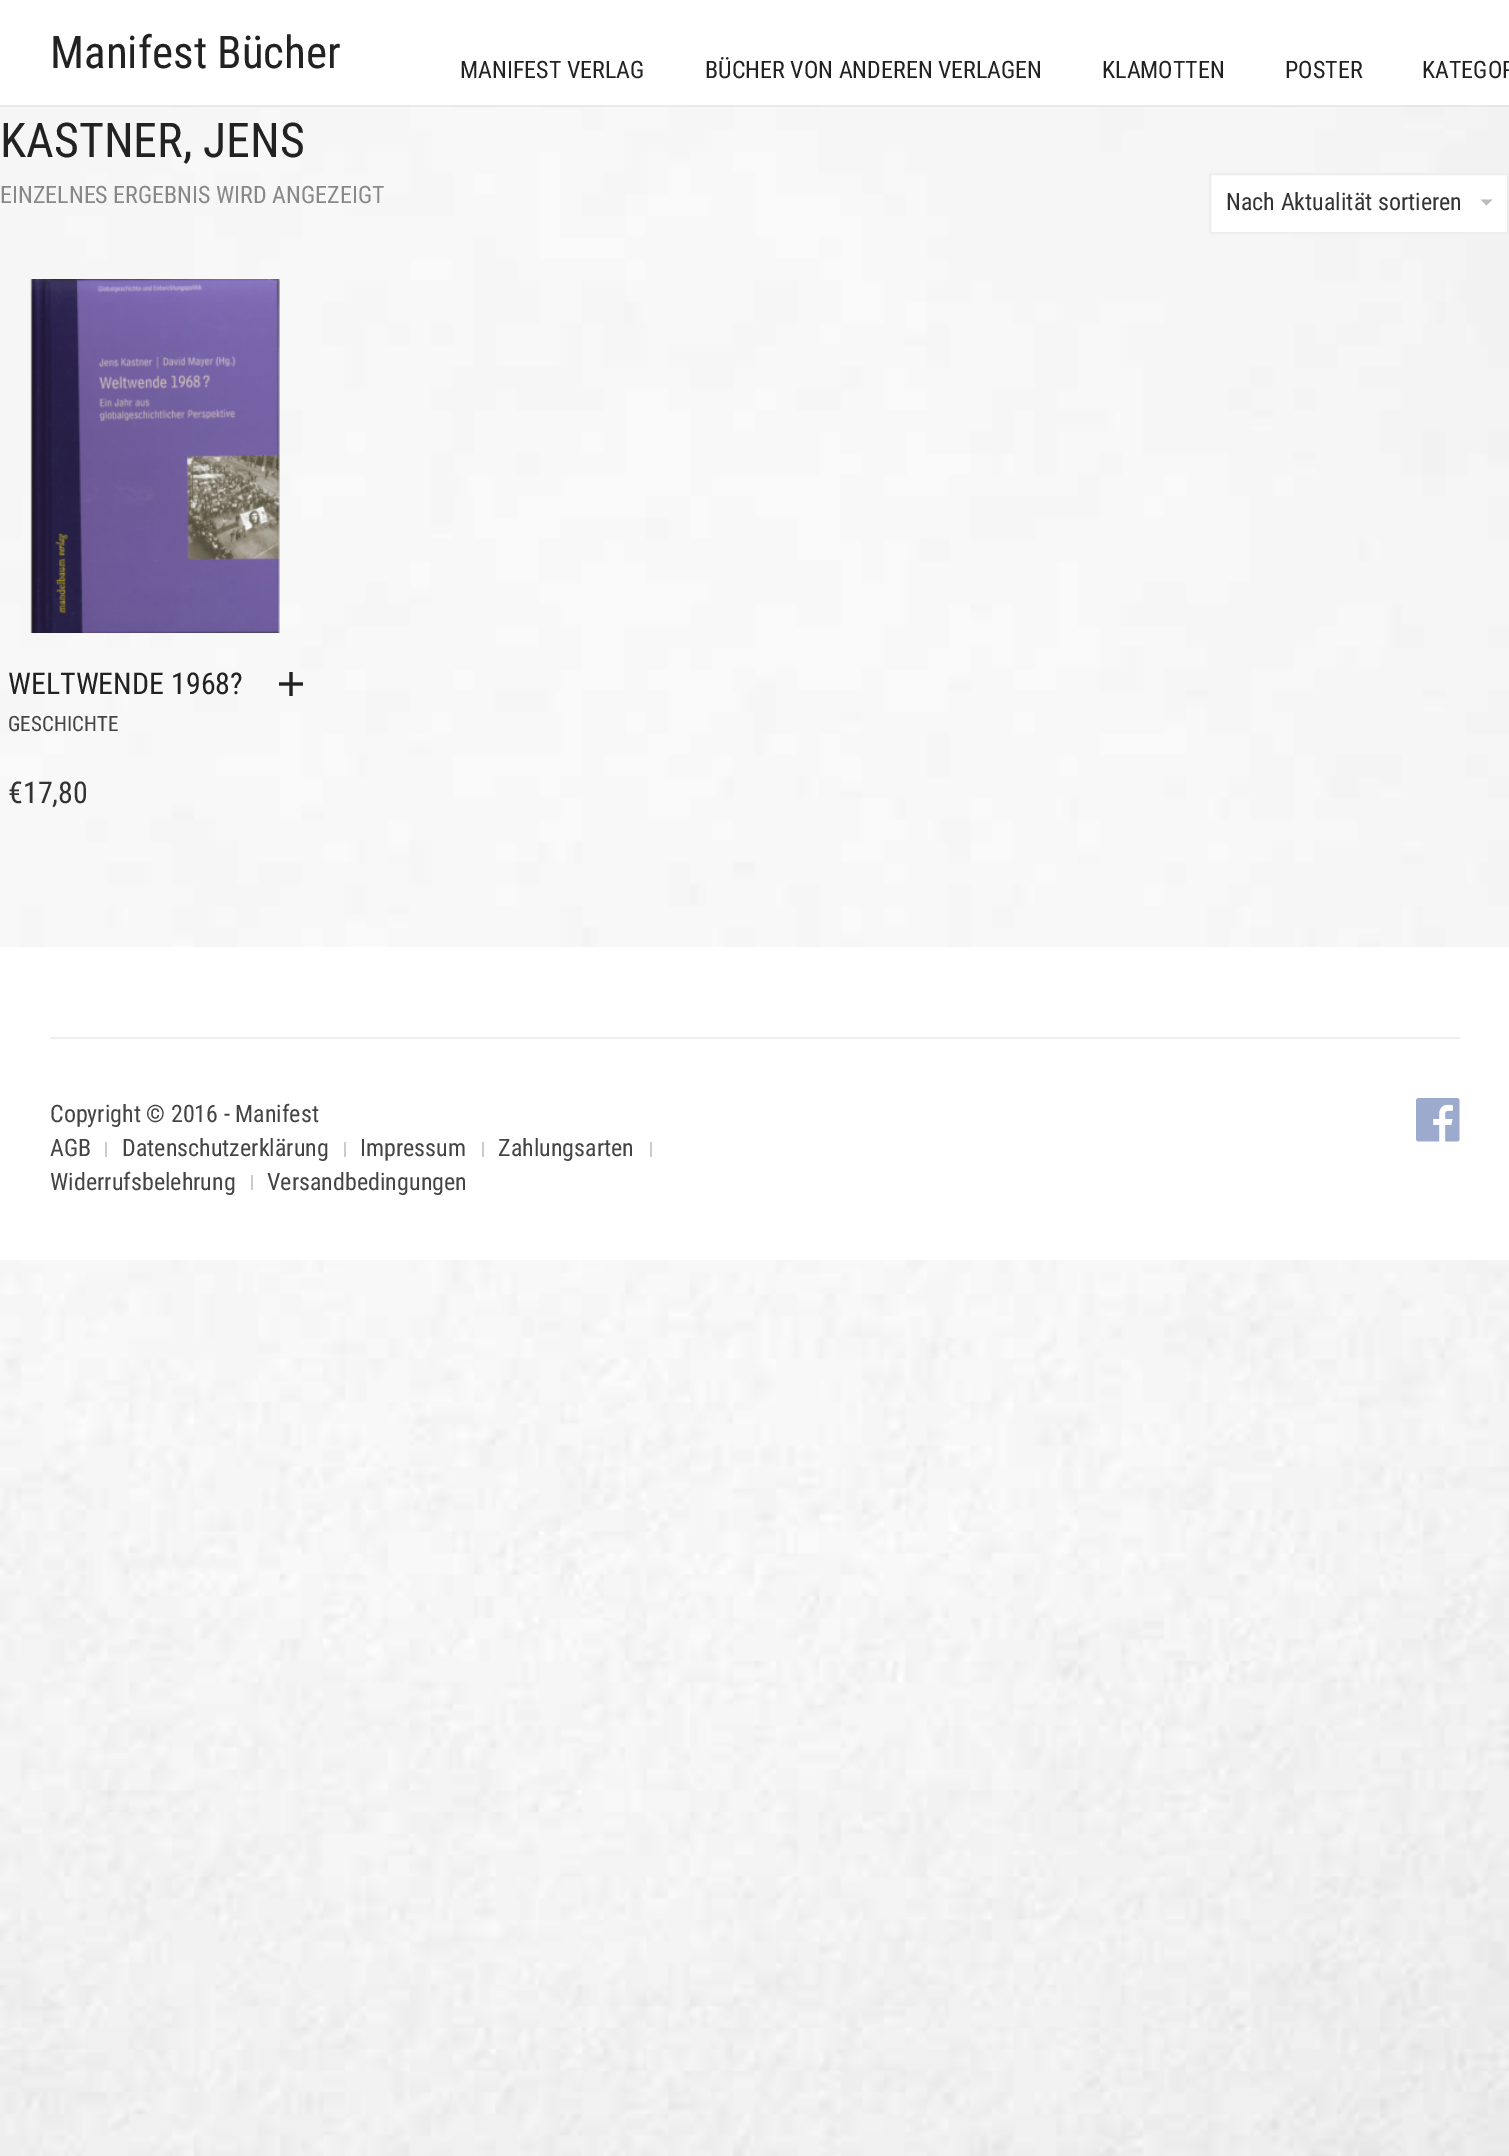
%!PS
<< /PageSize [1509 2156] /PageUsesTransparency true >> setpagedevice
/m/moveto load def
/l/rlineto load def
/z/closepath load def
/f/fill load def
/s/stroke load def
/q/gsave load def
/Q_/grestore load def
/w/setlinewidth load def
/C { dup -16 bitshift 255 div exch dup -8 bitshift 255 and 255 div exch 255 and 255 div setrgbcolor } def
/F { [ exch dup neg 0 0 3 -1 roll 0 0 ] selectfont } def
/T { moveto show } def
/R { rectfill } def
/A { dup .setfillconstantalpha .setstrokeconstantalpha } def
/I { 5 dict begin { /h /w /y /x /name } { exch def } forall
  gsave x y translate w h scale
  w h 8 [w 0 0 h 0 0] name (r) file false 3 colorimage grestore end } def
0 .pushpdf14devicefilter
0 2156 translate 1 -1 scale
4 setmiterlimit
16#FFFFFF C
0 0 1509 2156 R
(1.rgb) 0 105 1509 2051 I
0.05 A
16#000000 C
0 105 1509 2 R
/RobotoCondensed-Regular 45 F
1 A
16#222222 C
(Manifest Bücher) 50 68 T
/RobotoCondensed-Regular 24 F
(MANIFEST VERLAG) 460 78 T
(BÜCHER VON ANDEREN VERLAGEN) 705 78 T
(KLAMOTTEN) 1102 78 T
(POSTER) 1285 78 T
(KATEGOR) 1422 78 T
/RobotoCondensed-Regular 48 F
(KASTNER, JENS) 0 157 T
/RobotoCondensed-Regular 24 F
16#888888 C
(EINZELNES ERGEBNIS WIRD ANGEZEIGT) 0 203 T
16#FFFFFF C
1210 174 m 298 0 l 0 59 l -298 0 l z q f Q_
16#EEEEEE C
2 w
s
16#333333 C
(Nach Aktualität sortieren) 1226 210 T
16#BBBBBB C
1480.5 199.5 m 12 0 l -6 6 l z f
(2.rgb) 30 279 250 354 I
/RobotoCondensed-Regular 30 F
16#222222 C
(WELTWENDE 1968?) 8 694 T
(3.rgb) 279 672 24 24 I
/RobotoCondensed-Regular 21 F
16#444444 C
(GESCHICHTE) 8 731 T
/RobotoCondensed-Regular 30 F
16#333333 C
(€17,80) 8 803 T
16#FFFFFF C
0 947 1509 313 R
16#EEEEEE C
50 1037 1410 2 R
/RobotoCondensed-Regular 24 F
16#444444 C
(Copyright © 2016 - Manifest) 50 1122 T
(AGB) 50 1156 T
16#CCCCCC C
105 1142 2 15 R
16#444444 C
(Datenschutzerklärung) 122 1156 T
16#CCCCCC C
344 1142 2 15 R
16#444444 C
(Impressum) 360 1156 T
16#CCCCCC C
482 1142 2 15 R
16#444444 C
(Zahlungsarten) 498 1156 T
16#CCCCCC C
650 1142 2 15 R
16#444444 C
(Widerrufsbelehrung) 50 1190 T
16#CCCCCC C
251 1175 2 15 R
16#444444 C
(Versandbedingungen) 267 1190 T
(4.rgb) 1416 1098 44 44 I
.poppdf14devicefilter showpage
